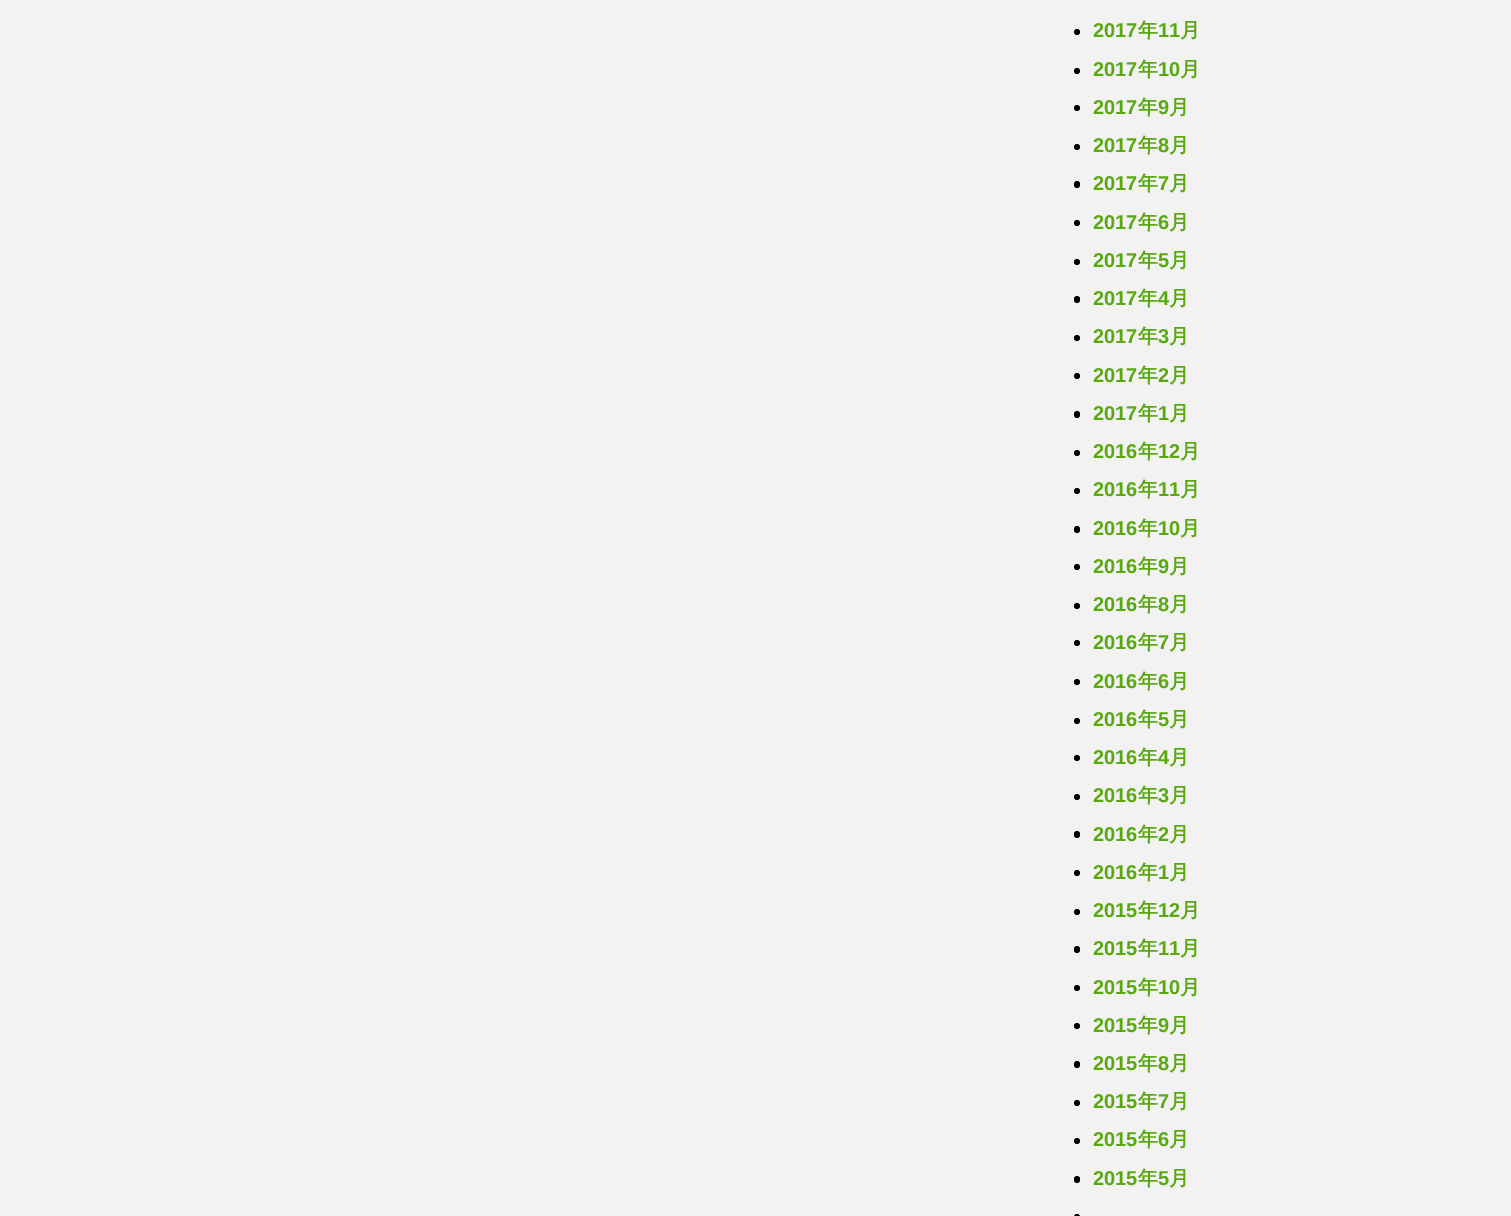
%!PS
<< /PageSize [1511 1216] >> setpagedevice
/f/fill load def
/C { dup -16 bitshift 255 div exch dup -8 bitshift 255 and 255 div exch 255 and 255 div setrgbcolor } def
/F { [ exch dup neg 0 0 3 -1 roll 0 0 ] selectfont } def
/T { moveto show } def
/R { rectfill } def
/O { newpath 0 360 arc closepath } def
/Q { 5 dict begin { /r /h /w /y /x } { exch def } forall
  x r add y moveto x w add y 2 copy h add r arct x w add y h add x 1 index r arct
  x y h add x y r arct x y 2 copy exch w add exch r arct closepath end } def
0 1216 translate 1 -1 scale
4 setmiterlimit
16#F2F2F2 C
0 0 1511 1216 R
16#000000 C
1077 32 3 O f
/LiberationSans-Bold 20 F
16#59A80F C
(2017) 1093 37 T
/WenQuanYiZenHei-Bold 20 F
(年) 1138 37 T
/LiberationSans-Bold 20 F
(11) 1158 37 T
/WenQuanYiZenHei-Bold 20 F
(月) 1180 37 T
16#000000 C
1077 71 3 O f
/LiberationSans-Bold 20 F
16#59A80F C
(2017) 1093 76 T
/WenQuanYiZenHei-Bold 20 F
(年) 1138 76 T
/LiberationSans-Bold 20 F
(10) 1158 76 T
/WenQuanYiZenHei-Bold 20 F
(月) 1180 76 T
16#000000 C
1077 108 3 O f
/LiberationSans-Bold 20 F
16#59A80F C
(2017) 1093 114 T
/WenQuanYiZenHei-Bold 20 F
(年) 1138 114 T
/LiberationSans-Bold 20 F
(9) 1158 114 T
/WenQuanYiZenHei-Bold 20 F
(月) 1169 114 T
16#000000 C
1077 147 3 O f
/LiberationSans-Bold 20 F
16#59A80F C
(2017) 1093 152 T
/WenQuanYiZenHei-Bold 20 F
(年) 1138 152 T
/LiberationSans-Bold 20 F
(8) 1158 152 T
/WenQuanYiZenHei-Bold 20 F
(月) 1169 152 T
16#000000 C
1074 181 6 7 3 Q f
/LiberationSans-Bold 20 F
16#59A80F C
(2017) 1093 190 T
/WenQuanYiZenHei-Bold 20 F
(年) 1138 190 T
/LiberationSans-Bold 20 F
(7) 1158 190 T
/WenQuanYiZenHei-Bold 20 F
(月) 1169 190 T
16#000000 C
1077 223 3 O f
/LiberationSans-Bold 20 F
16#59A80F C
(2017) 1093 229 T
/WenQuanYiZenHei-Bold 20 F
(年) 1138 229 T
/LiberationSans-Bold 20 F
(6) 1158 229 T
/WenQuanYiZenHei-Bold 20 F
(月) 1169 229 T
16#000000 C
1077 262 3 O f
/LiberationSans-Bold 20 F
16#59A80F C
(2017) 1093 267 T
/WenQuanYiZenHei-Bold 20 F
(年) 1138 267 T
/LiberationSans-Bold 20 F
(5) 1158 267 T
/WenQuanYiZenHei-Bold 20 F
(月) 1169 267 T
16#000000 C
1074 296 6 7 3 Q f
/LiberationSans-Bold 20 F
16#59A80F C
(2017) 1093 305 T
/WenQuanYiZenHei-Bold 20 F
(年) 1138 305 T
/LiberationSans-Bold 20 F
(4) 1158 305 T
/WenQuanYiZenHei-Bold 20 F
(月) 1169 305 T
16#000000 C
1077 338 3 O f
/LiberationSans-Bold 20 F
16#59A80F C
(2017) 1093 343 T
/WenQuanYiZenHei-Bold 20 F
(年) 1138 343 T
/LiberationSans-Bold 20 F
(3) 1158 343 T
/WenQuanYiZenHei-Bold 20 F
(月) 1169 343 T
16#000000 C
1077 376 3 O f
/LiberationSans-Bold 20 F
16#59A80F C
(2017) 1093 382 T
/WenQuanYiZenHei-Bold 20 F
(年) 1138 382 T
/LiberationSans-Bold 20 F
(2) 1158 382 T
/WenQuanYiZenHei-Bold 20 F
(月) 1169 382 T
16#000000 C
1074 411 6 7 3 Q f
/LiberationSans-Bold 20 F
16#59A80F C
(2017) 1093 420 T
/WenQuanYiZenHei-Bold 20 F
(年) 1138 420 T
/LiberationSans-Bold 20 F
(1) 1158 420 T
/WenQuanYiZenHei-Bold 20 F
(月) 1169 420 T
16#000000 C
1077 453 3 O f
/LiberationSans-Bold 20 F
16#59A80F C
(2016) 1093 458 T
/WenQuanYiZenHei-Bold 20 F
(年) 1138 458 T
/LiberationSans-Bold 20 F
(12) 1158 458 T
/WenQuanYiZenHei-Bold 20 F
(月) 1180 458 T
16#000000 C
1077 491 3 O f
/LiberationSans-Bold 20 F
16#59A80F C
(2016) 1093 496 T
/WenQuanYiZenHei-Bold 20 F
(年) 1138 496 T
/LiberationSans-Bold 20 F
(11) 1158 496 T
/WenQuanYiZenHei-Bold 20 F
(月) 1180 496 T
16#000000 C
1074 526 6 7 3 Q f
/LiberationSans-Bold 20 F
16#59A80F C
(2016) 1093 535 T
/WenQuanYiZenHei-Bold 20 F
(年) 1138 535 T
/LiberationSans-Bold 20 F
(10) 1158 535 T
/WenQuanYiZenHei-Bold 20 F
(月) 1180 535 T
16#000000 C
1077 567 3 O f
/LiberationSans-Bold 20 F
16#59A80F C
(2016) 1093 573 T
/WenQuanYiZenHei-Bold 20 F
(年) 1138 573 T
/LiberationSans-Bold 20 F
(9) 1158 573 T
/WenQuanYiZenHei-Bold 20 F
(月) 1169 573 T
16#000000 C
1077 606 3 O f
/LiberationSans-Bold 20 F
16#59A80F C
(2016) 1093 611 T
/WenQuanYiZenHei-Bold 20 F
(年) 1138 611 T
/LiberationSans-Bold 20 F
(8) 1158 611 T
/WenQuanYiZenHei-Bold 20 F
(月) 1169 611 T
16#000000 C
1077 643 3 O f
/LiberationSans-Bold 20 F
16#59A80F C
(2016) 1093 649 T
/WenQuanYiZenHei-Bold 20 F
(年) 1138 649 T
/LiberationSans-Bold 20 F
(7) 1158 649 T
/WenQuanYiZenHei-Bold 20 F
(月) 1169 649 T
16#000000 C
1077 682 3 O f
/LiberationSans-Bold 20 F
16#59A80F C
(2016) 1093 688 T
/WenQuanYiZenHei-Bold 20 F
(年) 1138 688 T
/LiberationSans-Bold 20 F
(6) 1158 688 T
/WenQuanYiZenHei-Bold 20 F
(月) 1169 688 T
16#000000 C
1077 721 3 O f
/LiberationSans-Bold 20 F
16#59A80F C
(2016) 1093 726 T
/WenQuanYiZenHei-Bold 20 F
(年) 1138 726 T
/LiberationSans-Bold 20 F
(5) 1158 726 T
/WenQuanYiZenHei-Bold 20 F
(月) 1169 726 T
16#000000 C
1077 758 3 O f
/LiberationSans-Bold 20 F
16#59A80F C
(2016) 1093 764 T
/WenQuanYiZenHei-Bold 20 F
(年) 1138 764 T
/LiberationSans-Bold 20 F
(4) 1158 764 T
/WenQuanYiZenHei-Bold 20 F
(月) 1169 764 T
16#000000 C
1077 797 3 O f
/LiberationSans-Bold 20 F
16#59A80F C
(2016) 1093 802 T
/WenQuanYiZenHei-Bold 20 F
(年) 1138 802 T
/LiberationSans-Bold 20 F
(3) 1158 802 T
/WenQuanYiZenHei-Bold 20 F
(月) 1169 802 T
16#000000 C
1074 831 6 7 3 Q f
/LiberationSans-Bold 20 F
16#59A80F C
(2016) 1093 841 T
/WenQuanYiZenHei-Bold 20 F
(年) 1138 841 T
/LiberationSans-Bold 20 F
(2) 1158 841 T
/WenQuanYiZenHei-Bold 20 F
(月) 1169 841 T
16#000000 C
1077 873 3 O f
/LiberationSans-Bold 20 F
16#59A80F C
(2016) 1093 879 T
/WenQuanYiZenHei-Bold 20 F
(年) 1138 879 T
/LiberationSans-Bold 20 F
(1) 1158 879 T
/WenQuanYiZenHei-Bold 20 F
(月) 1169 879 T
16#000000 C
1077 912 3 O f
/LiberationSans-Bold 20 F
16#59A80F C
(2015) 1093 917 T
/WenQuanYiZenHei-Bold 20 F
(年) 1138 917 T
/LiberationSans-Bold 20 F
(12) 1158 917 T
/WenQuanYiZenHei-Bold 20 F
(月) 1180 917 T
16#000000 C
1074 946 6 7 3 Q f
/LiberationSans-Bold 20 F
16#59A80F C
(2015) 1093 955 T
/WenQuanYiZenHei-Bold 20 F
(年) 1138 955 T
/LiberationSans-Bold 20 F
(11) 1158 955 T
/WenQuanYiZenHei-Bold 20 F
(月) 1180 955 T
16#000000 C
1077 988 3 O f
/LiberationSans-Bold 20 F
16#59A80F C
(2015) 1093 994 T
/WenQuanYiZenHei-Bold 20 F
(年) 1138 994 T
/LiberationSans-Bold 20 F
(10) 1158 994 T
/WenQuanYiZenHei-Bold 20 F
(月) 1180 994 T
16#000000 C
1077 1026 3 O f
/LiberationSans-Bold 20 F
16#59A80F C
(2015) 1093 1032 T
/WenQuanYiZenHei-Bold 20 F
(年) 1138 1032 T
/LiberationSans-Bold 20 F
(9) 1158 1032 T
/WenQuanYiZenHei-Bold 20 F
(月) 1169 1032 T
16#000000 C
1074 1061 6 7 3 Q f
/LiberationSans-Bold 20 F
16#59A80F C
(2015) 1093 1070 T
/WenQuanYiZenHei-Bold 20 F
(年) 1138 1070 T
/LiberationSans-Bold 20 F
(8) 1158 1070 T
/WenQuanYiZenHei-Bold 20 F
(月) 1169 1070 T
16#000000 C
1077 1103 3 O f
/LiberationSans-Bold 20 F
16#59A80F C
(2015) 1093 1108 T
/WenQuanYiZenHei-Bold 20 F
(年) 1138 1108 T
/LiberationSans-Bold 20 F
(7) 1158 1108 T
/WenQuanYiZenHei-Bold 20 F
(月) 1169 1108 T
16#000000 C
1077 1141 3 O f
/LiberationSans-Bold 20 F
16#59A80F C
(2015) 1093 1146 T
/WenQuanYiZenHei-Bold 20 F
(年) 1138 1146 T
/LiberationSans-Bold 20 F
(6) 1158 1146 T
/WenQuanYiZenHei-Bold 20 F
(月) 1169 1146 T
16#000000 C
1074 1176 6 7 3 Q f
/LiberationSans-Bold 20 F
16#59A80F C
(2015) 1093 1185 T
/WenQuanYiZenHei-Bold 20 F
(年) 1138 1185 T
/LiberationSans-Bold 20 F
(5) 1158 1185 T
/WenQuanYiZenHei-Bold 20 F
(月) 1169 1185 T
16#000000 C
1074 1214 6 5 3 Q f
showpage
